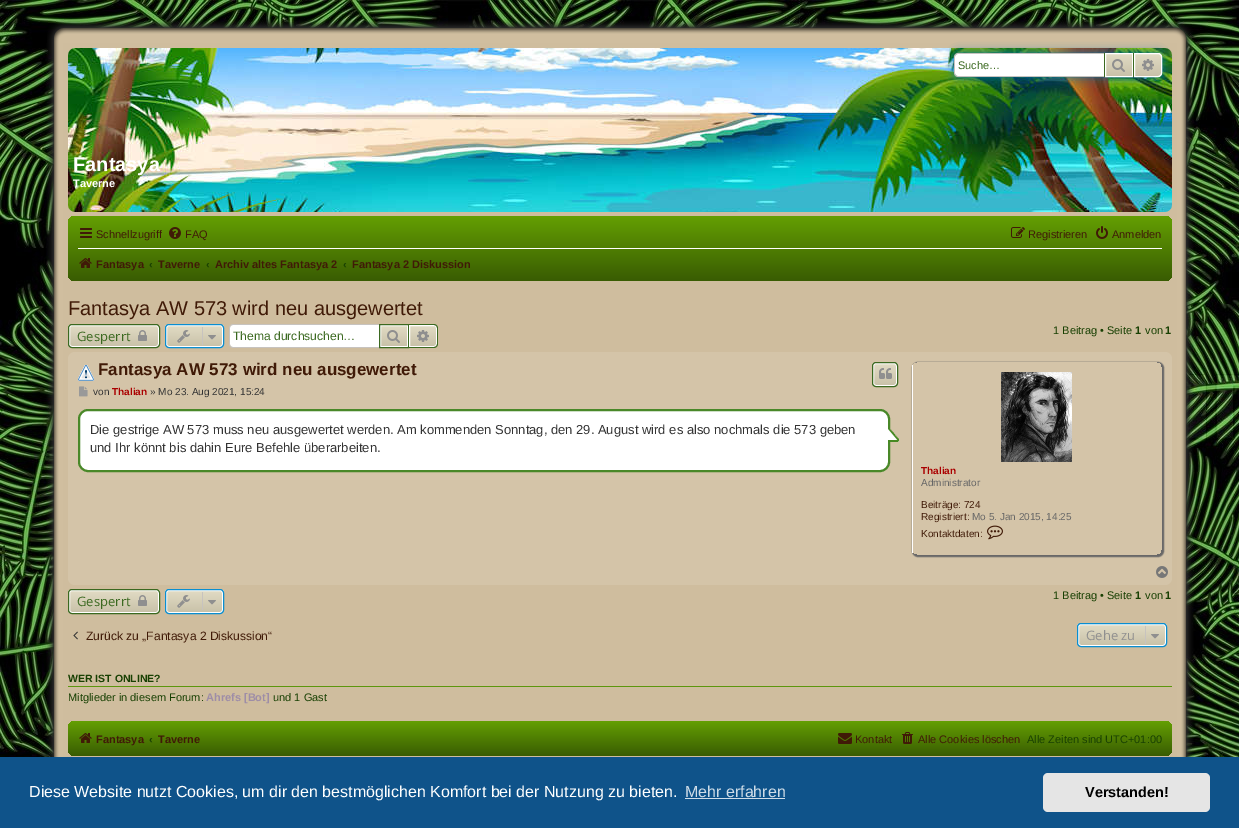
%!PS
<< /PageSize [1239 828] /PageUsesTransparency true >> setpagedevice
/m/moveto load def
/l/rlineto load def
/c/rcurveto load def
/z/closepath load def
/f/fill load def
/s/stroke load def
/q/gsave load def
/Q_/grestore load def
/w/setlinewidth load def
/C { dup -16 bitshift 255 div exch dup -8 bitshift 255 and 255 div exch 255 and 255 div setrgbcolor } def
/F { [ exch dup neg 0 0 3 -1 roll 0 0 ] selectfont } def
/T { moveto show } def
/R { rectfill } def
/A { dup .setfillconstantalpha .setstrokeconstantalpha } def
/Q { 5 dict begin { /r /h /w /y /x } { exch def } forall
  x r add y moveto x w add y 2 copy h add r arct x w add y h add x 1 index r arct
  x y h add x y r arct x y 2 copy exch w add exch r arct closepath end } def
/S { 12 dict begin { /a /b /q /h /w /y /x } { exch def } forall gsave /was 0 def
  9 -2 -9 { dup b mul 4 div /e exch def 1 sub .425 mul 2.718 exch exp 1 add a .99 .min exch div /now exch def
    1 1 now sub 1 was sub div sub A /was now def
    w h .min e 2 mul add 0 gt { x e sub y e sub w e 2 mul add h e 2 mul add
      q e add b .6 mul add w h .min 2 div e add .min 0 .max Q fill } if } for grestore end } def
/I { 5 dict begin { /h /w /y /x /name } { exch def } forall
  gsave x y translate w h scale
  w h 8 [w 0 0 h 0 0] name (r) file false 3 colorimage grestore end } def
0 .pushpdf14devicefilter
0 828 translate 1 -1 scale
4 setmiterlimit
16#FFFFFF C
0 0 1239 828 R
(1.rgb) 0 0 1239 757 I
(2.rgb) 47 20 22 23 I
(3.rgb) 69 20 1102 23 I
(4.rgb) 1171 20 22 23 I
(5.rgb) 46 43 17 714 I
(6.rgb) 1177 43 17 714 I
16#CFBD9E C
63 43 1114 714 R
(7.rgb) 68 48 1104 164 I
16#0075B0 C
954 53 208 24 4 5 1 S
16#FFFFFF C
958 54 m 146 0 l 0 22 l -146 0 l -1.5 0 -3 -1.5 -3 -3 c 0 -16 l 0 -1.5 1.5 -3 3 -3 c z f
16#C7C3BF C
958 53 m 146 0 l 0 24 l -146 0 l -2 0 -4 -2 -4 -4 c 0 -16 l 0 -2 2 -4 4 -4 c z 958 54 m 146 0 l 0 22 l -146 0 l -2 0 -3 -1 -3 -3 c 0 -16 l 0 -2 1 -3 3 -3 c z eofill
/LiberationSans-Regular 11 F
16#3B6920 C
(Suche…) 958 69 T
q 1106 54 m 26 0 l 0 22 l -26 0 l z clip newpath
<< /ShadingType 2 /ColorSpace /DeviceRGB /Coords [1119 53 1119 77] /Extend [true true] /Function << /FunctionType 2 /Domain [0 1] /C0 [.886 .863 .773] /C1 [.784 .757 .659] /N 1 >> >> shfill Q_
16#FFFFFF C
1105.5 53.5 27 23 rectstroke
16#3B6920 C
1133 53 1 24 R
1104 53 1 24 R
(8.rgb) 1112 59 13 13 I
q 1134.5 53.5 m 23.5 0 l 2 0 3.5 1.5 3.5 3.5 c 0 16 l 0 2 -1.5 3.5 -3.5 3.5 c -23.5 0 l z clip newpath
<< /ShadingType 2 /ColorSpace /DeviceRGB /Coords [1148 53 1148 77] /Extend [true true] /Function << /FunctionType 2 /Domain [0 1] /C0 [.886 .863 .773] /C1 [.784 .757 .659] /N 1 >> >> shfill Q_
16#FFFFFF C
1134.5 53.5 m 23.5 0 l 2 0 3.5 1.5 3.5 3.5 c 0 16 l 0 2 -1.5 3.5 -3.5 3.5 c -23.5 0 l z s
(9.rgb) 1142 59 12 12 I
/LiberationSans-Bold 20 F
(Fantasya) 73 171 T
/LiberationSans-Bold 11 F
(Taverne) 73 187 T
q 68 216 1104 65 7 Q clip newpath
<< /ShadingType 2 /ColorSpace /DeviceRGB /Coords [620 216 620 281] /Extend [true true] /Function << /FunctionType 2 /Domain [0 1] /C0 [.392 .624 .012] /C1 [.224 .361 .008] /N 1 >> >> shfill Q_
(10.rgb) 80 228 12 10 I
/LiberationSans-Regular 11 F
16#401A07 C
(Schnellzugriff) 96 238 T
(11.rgb) 169 227 12 12 I
(FAQ) 185 238 T
(12.rgb) 1011 227 14 11 I
(Registrieren) 1028 238 T
(13.rgb) 1096 226 12 13 I
(Anmelden) 1112 238 T
16#FFFFFF C
78 248 1084 1 R
(14.rgb) 79 258 13 10 I
/LiberationSans-Bold 11 F
16#401A07 C
(Fantasya) 96 268 T
16#184002 C
(‹) 149 268 T
16#401A07 C
(Taverne) 158 268 T
16#184002 C
(‹) 206 268 T
16#401A07 C
(Archiv altes Fantasya 2) 215 268 T
16#184002 C
(‹) 343 268 T
16#401A07 C
(Fantasya 2 Diskussion) 352 268 T
/LiberationSans-Regular 20 F
(Fantasya AW 573 wird neu ausgewertet) 68 315 T
q
68 324 92 24 4 Q clip newpath
q 68 325 m 92 0 l 0 22 l -92 0 l z clip newpath
<< /ShadingType 2 /ColorSpace /DeviceRGB /Coords [114 325 114 347] /Extend [true true] /Function << /FunctionType 2 /Domain [0 1] /C0 [.886 .863 .773] /C1 [.784 .757 .659] /N 1 >> >> shfill Q_
Q_
16#FFFFFF C
69.5 325.5 89 21 2.5 Q s
16#3B6920 C
68.5 324.5 91 23 3.5 Q s
/OpenSans-Regular 13 F
(Gesperrt) 77 341 T
(15.rgb) 138 330 9 11 I
q
165 324 59 24 4 Q clip newpath
q 165 325 m 59 0 l 0 22 l -59 0 l z clip newpath
<< /ShadingType 2 /ColorSpace /DeviceRGB /Coords [195 325 195 347] /Extend [true true] /Function << /FunctionType 2 /Domain [0 1] /C0 [.886 .863 .773] /C1 [.784 .757 .659] /N 1 >> >> shfill Q_
Q_
16#FFFFFF C
166.5 325.5 56 21 2.5 Q s
16#0A8ED0 C
165.5 324.5 58 23 3.5 Q s
(16.rgb) 177 330 13 13 I
16#C7C3BF C
202 327 1 18 R
(17.rgb) 208 335 8 5 I
16#FFFFFF C
233 325 m 146 0 l 0 22 l -146 0 l -1.5 0 -3 -1.5 -3 -3 c 0 -16 l 0 -1.5 1.5 -3 3 -3 c z f
16#C7C3BF C
233 324 m 146 0 l 0 24 l -146 0 l -2 0 -4 -2 -4 -4 c 0 -16 l 0 -2 2 -4 4 -4 c z 233 325 m 146 0 l 0 22 l -146 0 l -2 0 -3 -1 -3 -3 c 0 -16 l 0 -2 1 -3 3 -3 c z eofill
/LiberationSans-Regular 12.1 F
16#3B6920 C
(Thema durchsuchen…) 233 340 T
q 381 326 m 26 0 l 0 20 l -26 0 l z clip newpath
<< /ShadingType 2 /ColorSpace /DeviceRGB /Coords [394 325 394 347] /Extend [true true] /Function << /FunctionType 2 /Domain [0 1] /C0 [.886 .863 .773] /C1 [.784 .757 .659] /N 1 >> >> shfill Q_
16#FFFFFF C
380.5 325.5 27 21 rectstroke
16#3B6920 C
379.5 324.5 29 23 rectstroke
(18.rgb) 387 330 13 13 I
q 409.5 325.5 m 24.5 0 l 1.5 0 2.5 1 2.5 2.5 c 0 16 l 0 1.5 -1 2.5 -2.5 2.5 c -24.5 0 l z clip newpath
<< /ShadingType 2 /ColorSpace /DeviceRGB /Coords [423 325 423 347] /Extend [true true] /Function << /FunctionType 2 /Domain [0 1] /C0 [.886 .863 .773] /C1 [.784 .757 .659] /N 1 >> >> shfill Q_
16#FFFFFF C
409.5 325.5 m 24.5 0 l 1.5 0 2.5 1 2.5 2.5 c 0 16 l 0 1.5 -1 2.5 -2.5 2.5 c -24.5 0 l z s
16#3B6920 C
409 324 m 25 0 l 2 0 4 2 4 4 c 0 16 l 0 2 -2 4 -4 4 c -25 0 l z 409 325 m 25 0 l 1.5 0 3 1.5 3 3 c 0 16 l 0 1.5 -1.5 3 -3 3 c -25 0 l z eofill
(19.rgb) 417 330 12 12 I
/LiberationSans-Regular 11 F
16#184002 C
(1 Beitrag • Seite) 1053 334 T
/LiberationSans-Bold 11 F
(1) 1135 334 T
/LiberationSans-Regular 11 F
(von) 1145 334 T
/LiberationSans-Bold 11 F
(1) 1165 334 T
16#D4C4A8 C
68 352 1104 233 7 Q f
(20.rgb) 78 365 16 16 I
/LiberationSans-Bold 17 F
16#401A07 C
(Fantasya AW 573 wird neu ausgewertet) 98 375 T
q
872 362 26 25 4 Q clip newpath
q 872 363 m 26 0 l 0 23 l -26 0 l z clip newpath
<< /ShadingType 2 /ColorSpace /DeviceRGB /Coords [885 363 885 386] /Extend [true true] /Function << /FunctionType 2 /Domain [0 1] /C0 [.886 .863 .773] /C1 [.784 .757 .659] /N 1 >> >> shfill Q_
Q_
16#FFFFFF C
873.5 363.5 23 22 2.5 Q s
16#3B6920 C
872.5 362.5 25 24 3.5 Q s
(21.rgb) 879 368 13 11 I
(22.rgb) 79 386 9 11 I
/LiberationSans-Regular 10 F
16#333333 C
(von) 93 395 T
/LiberationSans-Bold 10 F
16#AA0000 C
(Thalian) 112 395 T
/LiberationSans-Regular 10 F
16#333333 C
(» Mo 23. Aug 2021, 15:24) 150 395 T
16#FFFFFF C
79 410 810 61 9 Q q f Q_
16#498828 C
2 w
s
/LiberationSans-Regular 13 F
16#333333 C
(Die gestrige AW 573 muss neu ausgewertet werden. Am kommenden Sonntag, den 29. August wird es also nochmals die 573 geben) 90 434 T
(23.rgb) 888 429 11 13 I
(und Ihr könnt bis dahin Eure Befehle überarbeiten.) 90 452 T
q
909 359 m 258 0 l 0 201 l -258 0 l z 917 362 m 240 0 l 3 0 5 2 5 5 c 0 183 l 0 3 -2 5 -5 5 c -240 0 l -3 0 -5 -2 -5 -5 c 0 -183 l 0 -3 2 -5 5 -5 c z eoclip newpath
16#666666 C
912 362 252 195 6 .5 1 S
Q_
16#FFFFFF C
912 365 1 188 R
(24.rgb) 1001 372 71 90 I
/LiberationSans-Bold 10 F
16#AA0000 C
(Thalian) 921 474 T
/LiberationSans-Regular 10 F
16#666666 C
(Administrator) 921 486 T
16#401A07 C
(Beiträge: 724) 921 508 T
(Registriert:) 921 520 T
16#666666 C
(Mo 5. Jan 2015, 14:25) 972 520 T
16#401A07 C
(Kontaktdaten:) 921 537 T
(25.rgb) 987 525 16 15 I
(26.rgb) 1156 566 12 12 I
q
68 589 92 25 4 Q clip newpath
q 68 590 m 92 0 l 0 23 l -92 0 l z clip newpath
<< /ShadingType 2 /ColorSpace /DeviceRGB /Coords [114 590 114 613] /Extend [true true] /Function << /FunctionType 2 /Domain [0 1] /C0 [.886 .863 .773] /C1 [.784 .757 .659] /N 1 >> >> shfill Q_
Q_
16#FFFFFF C
1 w
69.5 590.5 89 22 2.5 Q s
16#3B6920 C
68.5 589.5 91 24 3.5 Q s
/OpenSans-Regular 13 F
(Gesperrt) 77 606 T
(27.rgb) 138 595 9 11 I
q
165 589 59 25 4 Q clip newpath
q 165 590 m 59 0 l 0 23 l -59 0 l z clip newpath
<< /ShadingType 2 /ColorSpace /DeviceRGB /Coords [195 590 195 613] /Extend [true true] /Function << /FunctionType 2 /Domain [0 1] /C0 [.886 .863 .773] /C1 [.784 .757 .659] /N 1 >> >> shfill Q_
Q_
16#FFFFFF C
166.5 590.5 56 22 2.5 Q s
16#0A8ED0 C
165.5 589.5 58 24 3.5 Q s
(28.rgb) 177 595 13 13 I
16#C7C3BF C
202 592 1 18 R
(29.rgb) 208 600 8 5 I
/LiberationSans-Regular 11 F
16#184002 C
(1 Beitrag • Seite) 1053 599 T
/LiberationSans-Bold 11 F
(1) 1135 599 T
/LiberationSans-Regular 11 F
(von) 1145 599 T
/LiberationSans-Bold 11 F
(1) 1165 599 T
(30.rgb) 73 631 5 9 I
/LiberationSans-Regular 12.1 F
16#401A07 C
(Zurück zu „Fantasya 2 Diskussion“) 86 640 T
q
1077 623 90 24 4 Q clip newpath
q 1077 624 m 90 0 l 0 22 l -90 0 l z clip newpath
<< /ShadingType 2 /ColorSpace /DeviceRGB /Coords [1122 624 1122 646] /Extend [true true] /Function << /FunctionType 2 /Domain [0 1] /C0 [.886 .863 .773] /C1 [.784 .757 .659] /N 1 >> >> shfill Q_
Q_
16#FFFFFF C
1078.5 624.5 87 21 2.5 Q s
16#0A8ED0 C
1077.5 623.5 89 23 3.5 Q s
/OpenSans-Regular 13 F
16#8F8F8F C
(Gehe zu) 1086 640 T
16#C7C3BF C
1145 626 1 18 R
(17.rgb) 1151 634 8 5 I
16#5C960D C
68 686 1104 1 R
/LiberationSans-Bold 10.5 F
16#184002 C
(WER IST ONLINE?) 68 682 T
/LiberationSans-Regular 11 F
(Mitglieder in diesem Forum:) 68 701 T
/LiberationSans-Bold 11 F
16#9E8DA7 C
(Ahrefs [Bot]) 206 701 T
/LiberationSans-Regular 11 F
16#184002 C
(und 1 Gast) 273 701 T
q 68 721 1104 35 7 Q clip newpath
<< /ShadingType 2 /ColorSpace /DeviceRGB /Coords [620 721 620 756] /Extend [true true] /Function << /FunctionType 2 /Domain [0 1] /C0 [.392 .624 .012] /C1 [.224 .361 .008] /N 1 >> >> shfill Q_
(31.rgb) 79 733 13 10 I
/LiberationSans-Bold 11 F
16#401A07 C
(Fantasya) 96 743 T
16#184002 C
(‹) 149 743 T
16#401A07 C
(Taverne) 158 743 T
(32.rgb) 838 733 14 11 I
/LiberationSans-Regular 11 F
(Kontakt) 855 743 T
(33.rgb) 902 732 11 12 I
(Alle Cookies löschen) 918 743 T
16#184002 C
(Alle Zeiten sind UTC+01:00) 1027 743 T
16#0F538A C
0 757 1239 71 R
/LiberationSans-Regular 16 F
16#FFFFFF C
(Diese Website nutzt Cookies, um dir den bestmöglichen Komfort bei der Nutzung zu bieten.) 29 797 T
16#CFDDE8 C
(Mehr erfahren) 685 797 T
685 798 100 1 R
16#E5E5E5 C
1043 773 167 39 5 Q f
/LiberationSans-Bold 14.5 F
16#000000 C
(Verstanden!) 1085 797 T
.poppdf14devicefilter showpage
